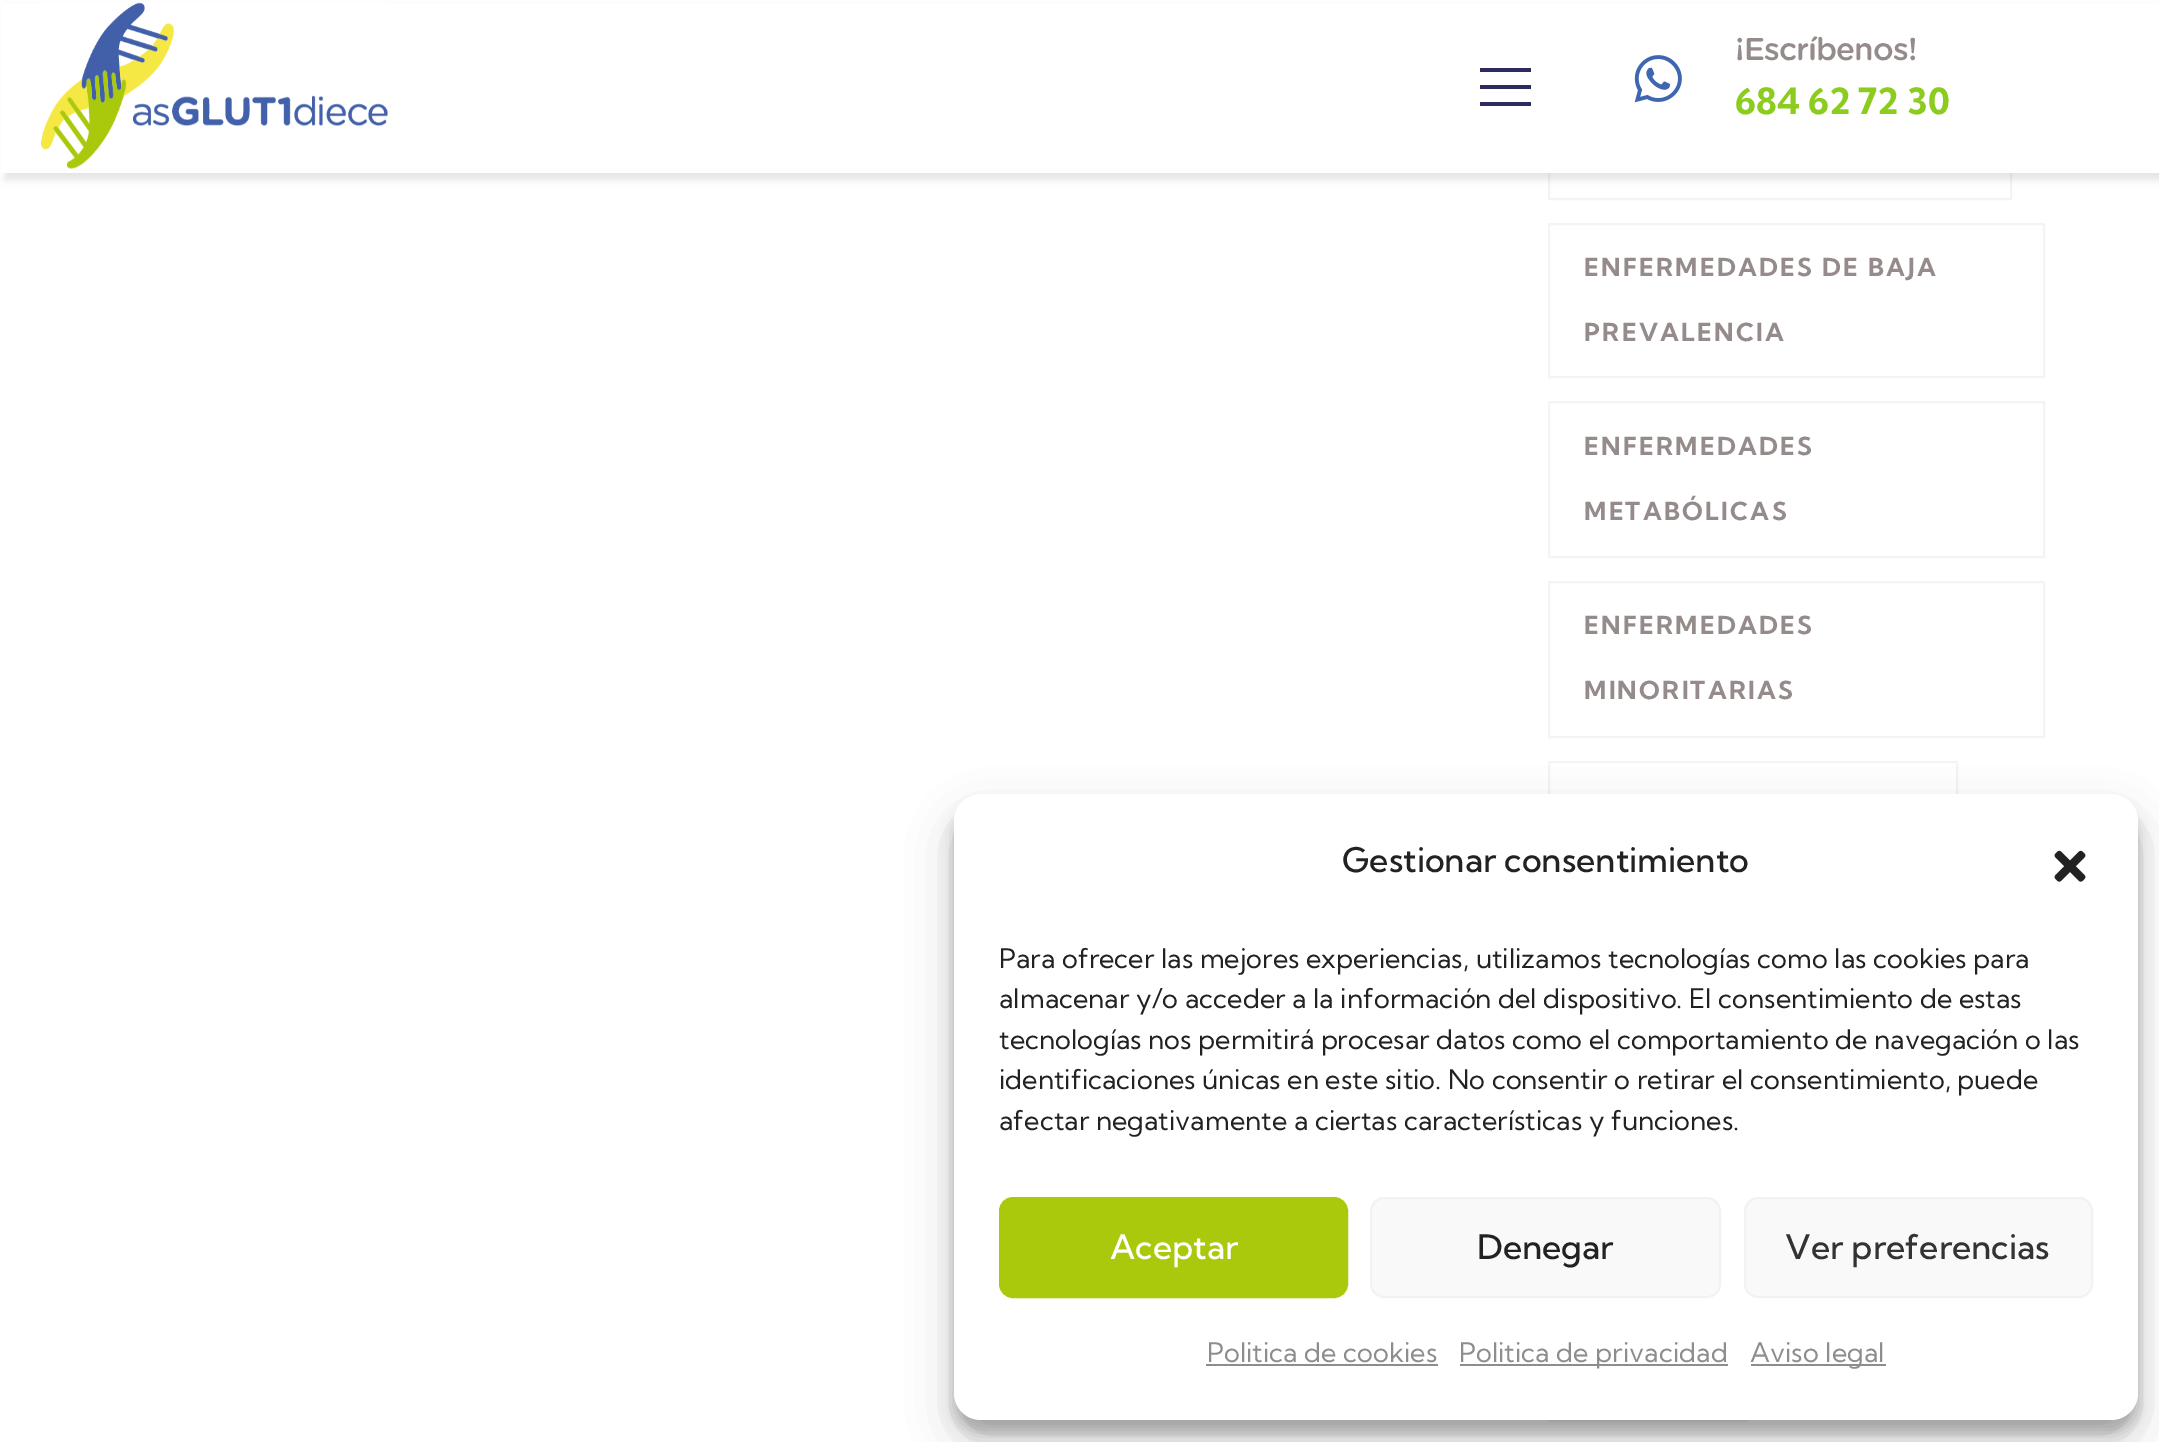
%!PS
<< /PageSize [2159 1442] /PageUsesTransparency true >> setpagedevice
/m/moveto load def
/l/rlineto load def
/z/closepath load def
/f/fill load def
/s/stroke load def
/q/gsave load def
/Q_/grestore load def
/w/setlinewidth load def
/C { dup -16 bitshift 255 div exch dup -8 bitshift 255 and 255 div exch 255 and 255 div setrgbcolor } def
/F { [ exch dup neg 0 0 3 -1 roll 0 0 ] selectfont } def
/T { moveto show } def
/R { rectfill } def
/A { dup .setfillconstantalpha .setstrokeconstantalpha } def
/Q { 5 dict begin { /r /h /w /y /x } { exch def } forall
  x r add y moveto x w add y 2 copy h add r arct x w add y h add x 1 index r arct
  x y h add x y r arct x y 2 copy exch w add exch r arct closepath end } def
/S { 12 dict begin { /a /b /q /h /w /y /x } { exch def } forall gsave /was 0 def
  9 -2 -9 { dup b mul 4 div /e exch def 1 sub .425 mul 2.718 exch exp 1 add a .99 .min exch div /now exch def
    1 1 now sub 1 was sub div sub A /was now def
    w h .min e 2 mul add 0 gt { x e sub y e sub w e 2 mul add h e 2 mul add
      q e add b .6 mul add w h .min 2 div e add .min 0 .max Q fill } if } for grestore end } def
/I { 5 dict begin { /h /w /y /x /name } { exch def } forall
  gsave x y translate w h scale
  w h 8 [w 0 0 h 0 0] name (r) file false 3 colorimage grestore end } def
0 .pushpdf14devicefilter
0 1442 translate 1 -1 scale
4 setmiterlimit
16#FFFFFF C
0 0 2159 1442 R
16#F4F3F8 C
2 w
1549 109 462 90 rectstroke
16#000000 C
5 7 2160 173 0 3.5 .1 S
16#FFFFFF C
1 3 2158 170 R
(1.rgb) 40 2 348 167 I
16#2B2B5E C
1480 68 m 0 4 l 51 0 l 0 -4 l z 1480 85 m 0 4 l 51 0 l 0 -4 l z 1480 102 m 0 4 l 51 0 l 0 -4 l z f
(2.rgb) 1634 55 48 48 I
/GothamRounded-Medium 31.5 F
16#958B8B C
1735 60 m -.9 0 (¡Escríbenos!) ashow
/KumbhSans-Bold 36 F
16#8CCC1E C
(684 62 72 30) 1735 114 T
16#F4F3F8 C
1549 224 495 153 rectstroke
/KumbhSans-Bold 24.75 F
16#958B8B C
1584 276 m 2.25 0 (ENFERMEDADES DE BAJA) ashow
1584 341 m 2.25 0 (PREVALENCIA) ashow
16#F4F3F8 C
1549 402 495 155 rectstroke
16#958B8B C
1584 455 m 2.25 0 (ENFERMEDADES) ashow
1584 520 m 2.25 0 (METABÓLICAS) ashow
16#F4F3F8 C
1549 582 495 155 rectstroke
16#958B8B C
1584 634 m 2.25 0 (ENFERMEDADES) ashow
1584 699 m 2.25 0 (MINORITARIAS) ashow
16#F4F3F8 C
1549 762 408 88 rectstroke
1549 1331 198 90 rectstroke
16#000000 C
954 808 1184 625 27 7 .23 S
954 817 1184 625 27 22.5 .19 S
16#FFFFFF C
954 794 1184 626 27 Q f
/KumbhSans-Medium 33.75 F
16#222222 C
(Gestionar consentimiento) 1342 872 T
(3.rgb) 2054 850 32 32 I
/KumbhSans-Regular 27 F
(Para ofrecer las mejores experiencias, utilizamos tecnologías como las cookies para) 999 968 T
(almacenar y/o acceder a la información del dispositivo. El consentimiento de estas) 999 1008 T
(tecnologías nos permitirá procesar datos como el comportamiento de navegación o las) 999 1049 T
(identificaciones únicas en este sitio. No consentir o retirar el consentimiento, puede) 999 1089 T
(afectar negativamente a ciertas características y funciones.) 999 1130 T
16#AAC90C C
1000 1198 347 99 13 Q q f Q_
s
/KumbhSans-Medium 33.75 F
16#FFFFFF C
(Aceptar) 1110 1259 T
16#F9F9F9 C
1371 1198 349 99 13 Q q f Q_
16#F2F2F2 C
s
16#222222 C
(Denegar) 1477 1259 T
16#F9F9F9 C
1745 1198 347 99 13 Q q f Q_
16#F2F2F2 C
s
16#333333 C
(Ver preferencias) 1785 1259 T
/KumbhSans-Regular 27 F
16#8E8D8D C
(Politica de cookies) 1207 1362 T
1206 1364 232 2 R
1460 1364 268 2 R
(Politica de privacidad) 1459 1362 T
1751 1364 135 2 R
(Aviso legal) 1750 1362 T
.poppdf14devicefilter showpage
